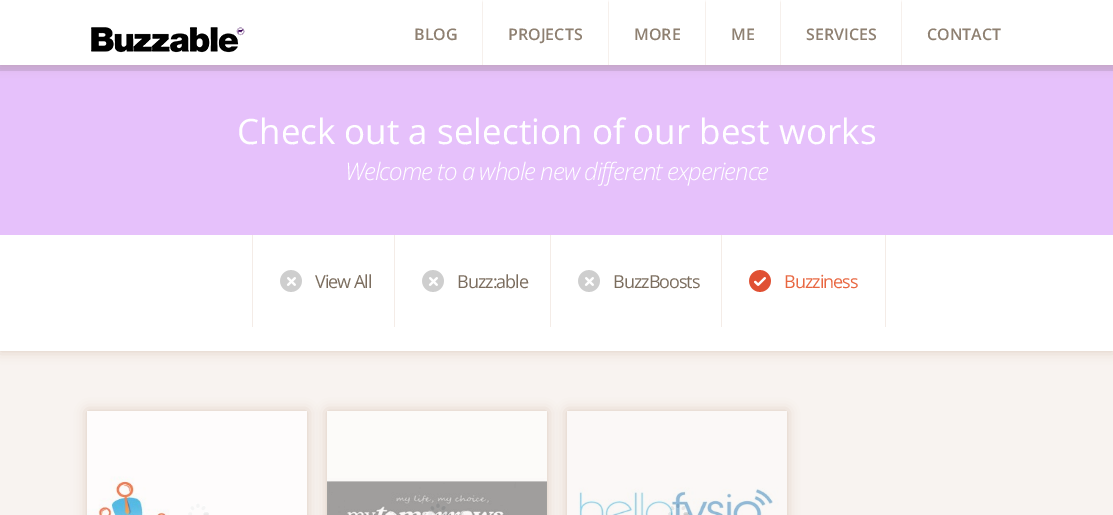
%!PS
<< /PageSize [1113 515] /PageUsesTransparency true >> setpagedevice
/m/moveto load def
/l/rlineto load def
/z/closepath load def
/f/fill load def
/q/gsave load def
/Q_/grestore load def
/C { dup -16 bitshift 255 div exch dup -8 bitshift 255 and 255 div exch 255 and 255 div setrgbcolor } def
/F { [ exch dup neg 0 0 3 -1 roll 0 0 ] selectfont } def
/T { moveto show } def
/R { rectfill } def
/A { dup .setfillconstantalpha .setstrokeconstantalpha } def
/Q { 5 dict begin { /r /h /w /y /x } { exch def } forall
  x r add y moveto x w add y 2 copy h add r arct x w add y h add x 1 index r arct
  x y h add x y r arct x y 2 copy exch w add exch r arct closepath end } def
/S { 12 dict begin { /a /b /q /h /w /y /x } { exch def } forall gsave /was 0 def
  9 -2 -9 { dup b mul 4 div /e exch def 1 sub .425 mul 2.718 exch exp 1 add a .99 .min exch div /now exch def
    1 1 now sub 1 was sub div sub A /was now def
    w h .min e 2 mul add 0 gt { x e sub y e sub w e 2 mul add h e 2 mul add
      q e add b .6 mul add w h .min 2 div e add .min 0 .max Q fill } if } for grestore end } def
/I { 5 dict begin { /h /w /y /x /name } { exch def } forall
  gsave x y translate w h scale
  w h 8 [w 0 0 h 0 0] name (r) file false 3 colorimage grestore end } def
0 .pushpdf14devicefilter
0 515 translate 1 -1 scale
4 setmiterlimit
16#F8F3F0 C
0 0 1113 515 R
16#AB8B6E C
0 235 1113 116 0 6 .38 S
16#E6C1FB C
0 71 1113 164 R
16#CFAEE2 C
0 65 1113 6 R
16#AB8B6E C
0 0 1113 65 0 6 .38 S
16#FFFFFF C
0 0 1113 65 R
(1.rgb) 91 27 154 26 I
16#F6F0EC C
483 0 m 0 65 l -1 0 l 0 -62 l z f
/OpenSans-SemiBold 16 F
16#8E8071 C
(BLOG) 414 40 T
16#F6F0EC C
609 0 m 0 65 l -1 0 l 0 -62 l z f
16#8E8071 C
(PROJECTS) 508 40 T
16#F6F0EC C
706 0 m 0 65 l -1 0 l 0 -62 l z f
16#8E8071 C
(MORE) 634 40 T
16#F6F0EC C
781 0 m 0 65 l -1 0 l 0 -62 l z f
16#8E8071 C
(ME) 731 40 T
16#F6F0EC C
902 0 m 0 65 l -1 0 l 0 -62 l z f
16#8E8071 C
(SERVICES) 806 40 T
(CONTACT) 927 40 T
/OpenSans-Regular 35 F
16#FFFFFF C
(Check out a selection of our best works) 237 144 T
/OpenSans-LightItalic 24 F
345 180 m -1 0 (Welcome to a whole new different experience) ashow
0 235 1113 116 R
16#F4ECE7 C
252 235 1 92 R
(2.rgb) 280 270 22 22 I
/OpenSans-Regular 18 F
16#7B6D5E C
315 288 m -1 0 (View All) ashow
16#F4ECE7 C
394 235 1 92 R
(2.rgb) 422 270 22 22 I
16#7B6D5E C
457 288 m -1 0 (Buzz:able) ashow
16#F4ECE7 C
550 235 1 92 R
(2.rgb) 578 270 22 22 I
16#7B6D5E C
613 288 m -1 0 (BuzzBoosts) ashow
16#F4ECE7 C
885 235 1 92 R
721 235 1 92 R
(3.rgb) 749 270 22 22 I
16#E86741 C
784 288 m -1 0 (Buzziness) ashow
q
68 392 m 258 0 l 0 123 l -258 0 l z 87 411 m 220 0 l 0 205 l -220 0 l z eoclip newpath
16#AB8B6E C
87 411 220 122 0 6 .38 S
Q_
(4.rgb) 188 503 21 12 I
(5.rgb) 87 411 220 104 I
q
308 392 m 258 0 l 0 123 l -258 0 l z 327 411 m 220 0 l 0 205 l -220 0 l z eoclip newpath
16#AB8B6E C
327 411 220 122 0 6 .38 S
Q_
(4.rgb) 428 503 21 12 I
(6.rgb) 327 411 220 104 I
q
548 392 m 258 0 l 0 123 l -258 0 l z 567 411 m 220 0 l 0 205 l -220 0 l z eoclip newpath
16#AB8B6E C
567 411 220 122 0 6 .38 S
Q_
(4.rgb) 668 503 21 12 I
(7.rgb) 567 411 220 104 I
.poppdf14devicefilter showpage
